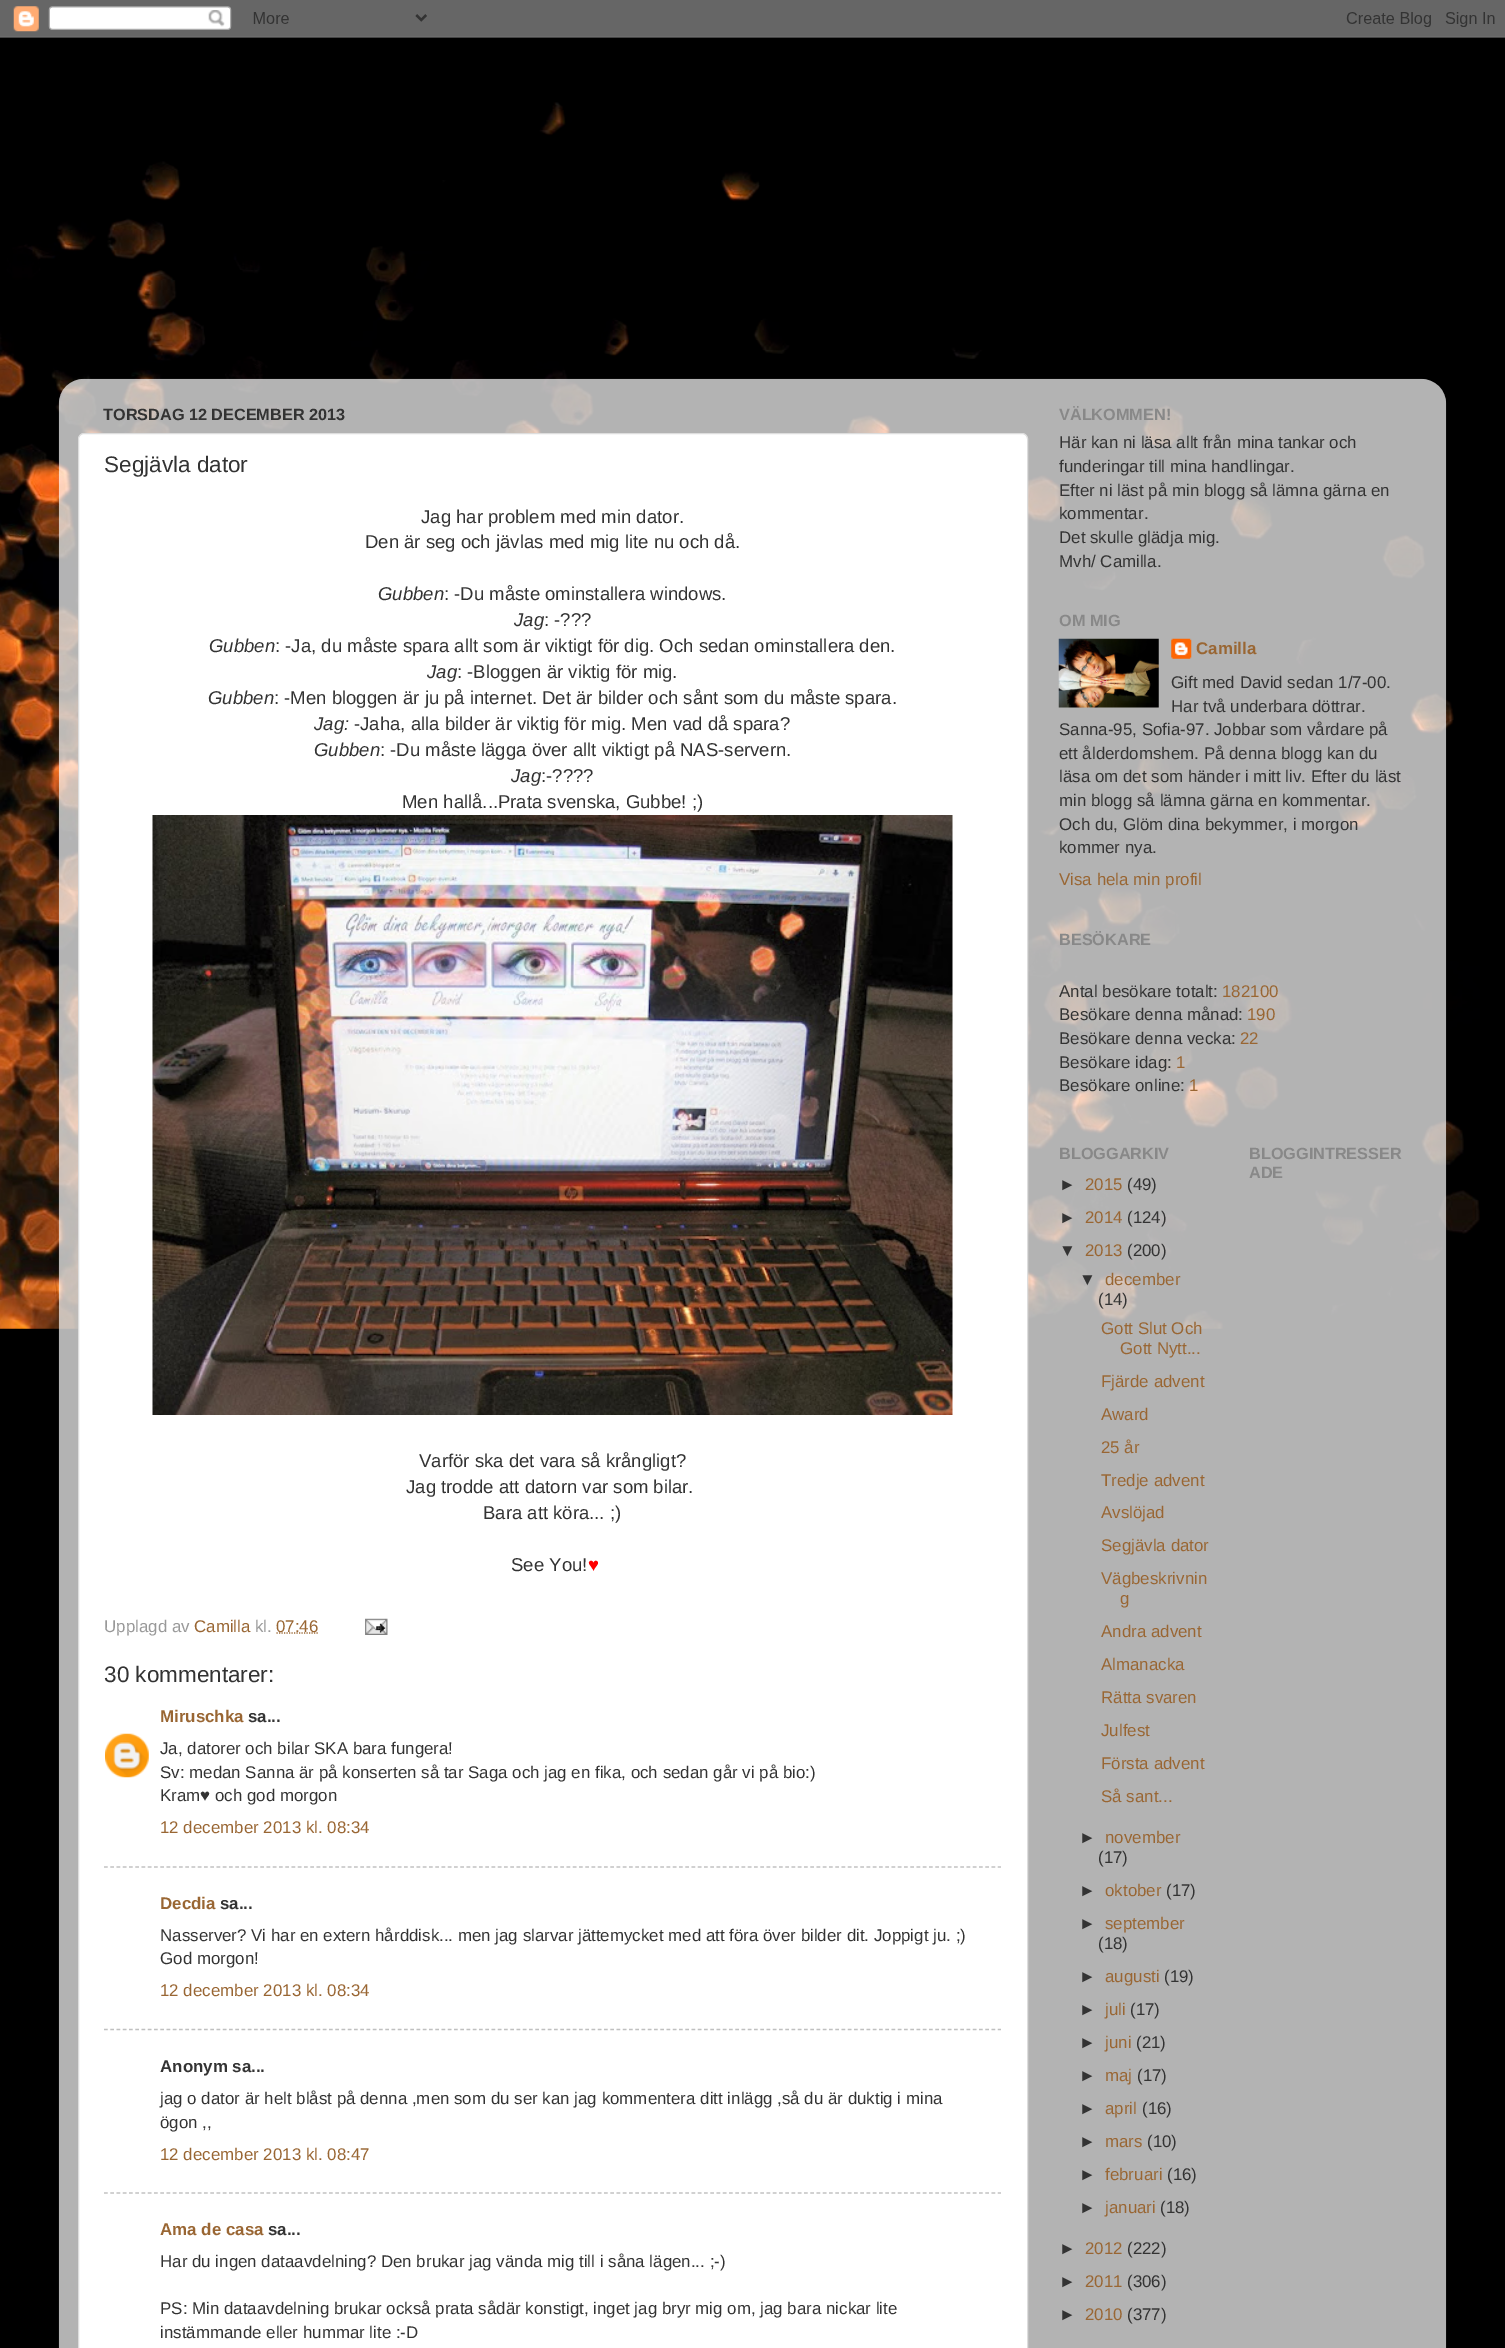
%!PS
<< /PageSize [1505 2348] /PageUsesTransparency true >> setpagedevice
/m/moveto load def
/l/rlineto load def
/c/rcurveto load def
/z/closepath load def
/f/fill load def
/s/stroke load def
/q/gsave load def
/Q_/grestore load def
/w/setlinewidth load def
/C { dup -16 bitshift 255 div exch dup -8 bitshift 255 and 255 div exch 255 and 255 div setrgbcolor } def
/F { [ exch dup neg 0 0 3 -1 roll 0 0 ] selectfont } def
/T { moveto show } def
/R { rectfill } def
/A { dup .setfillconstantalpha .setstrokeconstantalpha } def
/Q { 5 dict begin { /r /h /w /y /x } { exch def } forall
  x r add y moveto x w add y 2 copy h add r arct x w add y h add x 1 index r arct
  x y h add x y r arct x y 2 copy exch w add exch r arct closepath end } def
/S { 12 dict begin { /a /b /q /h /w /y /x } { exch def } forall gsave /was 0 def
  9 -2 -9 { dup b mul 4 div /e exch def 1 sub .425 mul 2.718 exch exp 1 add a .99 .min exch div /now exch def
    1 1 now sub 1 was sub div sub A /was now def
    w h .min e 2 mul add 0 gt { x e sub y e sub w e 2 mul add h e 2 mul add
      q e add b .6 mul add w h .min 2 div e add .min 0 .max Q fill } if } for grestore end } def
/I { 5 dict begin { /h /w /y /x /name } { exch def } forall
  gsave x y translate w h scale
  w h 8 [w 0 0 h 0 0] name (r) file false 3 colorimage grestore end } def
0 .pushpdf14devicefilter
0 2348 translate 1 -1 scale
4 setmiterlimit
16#000000 C
0 0 1505 2348 R
(1.rgb) 0 102 1480 1227 I
(2.rgb) 0 0 1505 38 I
q
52 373 m 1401 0 l 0 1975 l -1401 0 l z 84 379 m 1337 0 l 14 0 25 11 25 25 c 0 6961 l -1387 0 l 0 -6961 l 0 -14 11 -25 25 -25 c z eoclip newpath
59 380 1387 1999 25 2 .15 S
Q_
(3.rgb) 58 378 1389 1970 I
/LiberationSans-Bold 16.25 F
16#333333 C
(TORSDAG 12 DECEMBER 2013) 103 420 T
16#FFFFFF C
78.5 433.5 949 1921 5.5 Q q f Q_
16#DDDDDD C
s
/LiberationSans-Regular 22.5 F
16#333333 C
(Segjävla dator) 104 472 T
/LiberationSans-Regular 18.55 F
(Jag har problem med min dator.) 421 523 T
(Den är seg och jävlas med mig lite nu och då.) 365 548 T
/LiberationSans-Italic 18.55 F
(Gubben) 378 600 T
/LiberationSans-Regular 18.55 F
(: -Du måste ominstallera windows.) 444 600 T
/LiberationSans-Italic 18.55 F
(Jag) 514 626 T
/LiberationSans-Regular 18.55 F
(: -???) 544 626 T
/LiberationSans-Italic 18.55 F
(Gubben) 209 652 T
/LiberationSans-Regular 18.55 F
(: -Ja, du måste spara allt som är viktigt för dig. Och sedan ominstallera den.) 275 652 T
/LiberationSans-Italic 18.55 F
(Jag) 427 678 T
/LiberationSans-Regular 18.55 F
(: -Bloggen är viktig för mig.) 457 678 T
/LiberationSans-Italic 18.55 F
(Gubben) 208 704 T
/LiberationSans-Regular 18.55 F
(: -Men bloggen är ju på internet. Det är bilder och sånt som du måste spara.) 274 704 T
/LiberationSans-Italic 18.55 F
(Jag:) 314 730 T
/LiberationSans-Regular 18.55 F
(-Jaha, alla bilder är viktig för mig. Men vad då spara?) 354 730 T
/LiberationSans-Italic 18.55 F
(Gubben) 314 756 T
/LiberationSans-Regular 18.55 F
(: -Du måste lägga över allt viktigt på NAS-servern.) 380 756 T
/LiberationSans-Italic 18.55 F
(Jag) 511 782 T
/LiberationSans-Regular 18.55 F
(:-????) 541 782 T
(Men hallå...Prata svenska, Gubbe! ;\)) 402 808 T
(4.rgb) 152 815 801 600 I
(Varför ska det vara så krångligt?) 419 1467 T
(Jag trodde att datorn var som bilar.) 406 1493 T
(Bara att köra... ;\)) 483 1519 T
(See You!) 511 1571 T
16#FF0000 C
(♥) 588 1571 T
/LiberationSans-Regular 16.9 F
16#999999 C
(Upplagd av) 104 1632 T
16#996633 C
(Camilla) 194 1632 T
16#999999 C
(kl.) 255 1632 T
16#996633 C
1.2 w
[1.25 1.25] 0 setdash
276.5 1633 m 42 0 l s
(07:46) 276 1632 T
(5.rgb) 365 1618 23 17 I
/LiberationSans-Regular 22.5 F
16#333333 C
(30 kommentarer:) 104 1682 T
/LiberationSans-Bold 16.9 F
16#996633 C
(Miruschka) 160 1722 T
16#333333 C
(sa...) 248 1722 T
(6.rgb) 105 1733 44 45 I
/LiberationSans-Regular 16.9 F
(Ja, datorer och bilar SKA bara fungera!) 160 1754 T
(Sv: medan Sanna är på konserten så tar Saga och jag en fika, och sedan går vi på bio:\)) 160 1778 T
(Kram♥ och god morgon) 160 1801 T
16#996633 C
(12 december 2013 kl. 08:34) 160 1833 T
16#C0C0C0 C
[3.75 2.5] 0 setdash
104 1867 m 897 0 l s
/LiberationSans-Bold 16.9 F
16#996633 C
(Decdia) 160 1909 T
16#333333 C
(sa...) 220 1909 T
/LiberationSans-Regular 16.9 F
(Nasserver? Vi har en extern hårddisk... men jag slarvar jättemycket med att föra över bilder dit. Joppigt ju. ;\)) 160 1941 T
(God morgon!) 160 1964 T
16#996633 C
(12 december 2013 kl. 08:34) 160 1996 T
16#C0C0C0 C
104 2029.5 m 897 0 l s
/LiberationSans-Bold 16.9 F
16#333333 C
(Anonym sa...) 160 2072 T
/LiberationSans-Regular 16.9 F
(jag o dator är helt blåst på denna ,men som du ser kan jag kommentera ditt inlägg ,så du är duktig i mina) 160 2104 T
(ögon ,,) 160 2128 T
16#996633 C
(12 december 2013 kl. 08:47) 160 2160 T
16#C0C0C0 C
104 2193 m 897 0 l s
/LiberationSans-Bold 16.9 F
16#996633 C
(Ama de casa) 160 2235 T
16#333333 C
(sa...) 268 2235 T
/LiberationSans-Regular 16.9 F
(Har du ingen dataavdelning? Den brukar jag vända mig till i såna lägen... ;-\)) 160 2267 T
(PS: Min dataavdelning brukar också prata sådär konstigt, inget jag bryr mig om, jag bara nickar lite) 160 2314 T
(instämmande eller hummar lite :-D) 160 2338 T
/LiberationSans-Bold 16.25 F
16#888888 C
(VÄLKOMMEN!) 1059 420 T
/LiberationSans-Regular 16.9 F
16#333333 C
(Här kan ni läsa allt från mina tankar och) 1059 448 T
(funderingar till mina handlingar.) 1059 472 T
(Efter ni läst på min blogg så lämna gärna en) 1059 496 T
(kommentar.) 1059 519 T
(Det skulle glädja mig.) 1059 543 T
(Mvh/ Camilla.) 1059 567 T
/LiberationSans-Bold 16.25 F
16#888888 C
(OM MIG) 1059 626 T
(7.rgb) 1058 638 101 70 I
(8.rgb) 1171 638 21 21 I
/LiberationSans-Bold 16.9 F
16#996633 C
(Camilla) 1196 654 T
/LiberationSans-Regular 16.9 F
16#333333 C
(Gift med David sedan 1/7-00.) 1171 688 T
(Har två underbara döttrar.) 1171 712 T
(Sanna-95, Sofia-97. Jobbar som vårdare på) 1059 735 T
(ett ålderdomshem. På denna blogg kan du) 1059 759 T
(läsa om det som händer i mitt liv. Efter du läst) 1059 782 T
(min blogg så lämna gärna en kommentar.) 1059 806 T
(Och du, Glöm dina bekymmer, i morgon) 1059 830 T
(kommer nya.) 1059 853 T
16#996633 C
(Visa hela min profil) 1059 885 T
/LiberationSans-Bold 16.25 F
16#888888 C
(BESÖKARE) 1059 945 T
/LiberationSans-Regular 16.9 F
16#333333 C
(Antal besökare totalt:) 1059 997 T
16#996633 C
(182100) 1222 997 T
16#333333 C
(Besökare denna månad:) 1059 1020 T
16#996633 C
(190) 1247 1020 T
16#333333 C
(Besökare denna vecka:) 1059 1044 T
16#996633 C
(22) 1240 1044 T
16#333333 C
(Besökare idag:) 1059 1068 T
16#996633 C
(1) 1176 1068 T
16#333333 C
(Besökare online:) 1059 1091 T
16#996633 C
(1) 1189 1091 T
/LiberationSans-Bold 16.25 F
16#888888 C
(BLOGGARKIV) 1059 1159 T
/LiberationSans-Regular 16.9 F
16#333333 C
(►) 1059 1190 T
16#996633 C
(2015) 1085 1190 T
16#333333 C
(\(49\)) 1127 1190 T
(►) 1059 1223 T
16#996633 C
(2014) 1085 1223 T
16#333333 C
(\(124\)) 1127 1223 T
(▼) 1059 1256 T
16#996633 C
(2013) 1085 1256 T
16#333333 C
(\(200\)) 1127 1256 T
(▼) 1079 1285 T
16#996633 C
(december) 1105 1285 T
16#333333 C
(\(14\)) 1098 1305 T
16#996633 C
(Gott Slut Och) 1101 1334 T
(Gott Nytt...) 1120 1354 T
(Fjärde advent) 1101 1387 T
(Award) 1101 1420 T
(25 år) 1101 1453 T
(Tredje advent) 1101 1486 T
(Avslöjad) 1101 1518 T
(Segjävla dator) 1101 1551 T
(Vägbeskrivnin) 1101 1584 T
(g) 1120 1604 T
(Andra advent) 1101 1637 T
(Almanacka) 1101 1670 T
(Rätta svaren) 1101 1703 T
(Julfest) 1101 1736 T
(Första advent) 1101 1769 T
(Så sant...) 1101 1802 T
16#333333 C
(►) 1079 1843 T
16#996633 C
(november) 1105 1843 T
16#333333 C
(\(17\)) 1098 1863 T
(►) 1079 1896 T
16#996633 C
(oktober) 1105 1896 T
16#333333 C
(\(17\)) 1166 1896 T
(►) 1079 1929 T
16#996633 C
(september) 1105 1929 T
16#333333 C
(\(18\)) 1098 1949 T
(►) 1079 1982 T
16#996633 C
(augusti) 1105 1982 T
16#333333 C
(\(19\)) 1164 1982 T
(►) 1079 2015 T
16#996633 C
(juli) 1105 2015 T
16#333333 C
(\(17\)) 1130 2015 T
(►) 1079 2048 T
16#996633 C
(juni) 1105 2048 T
16#333333 C
(\(21\)) 1136 2048 T
(►) 1079 2081 T
16#996633 C
(maj) 1105 2081 T
16#333333 C
(\(17\)) 1137 2081 T
(►) 1079 2114 T
16#996633 C
(april) 1105 2114 T
16#333333 C
(\(16\)) 1142 2114 T
(►) 1079 2147 T
16#996633 C
(mars) 1105 2147 T
16#333333 C
(\(10\)) 1147 2147 T
(►) 1079 2180 T
16#996633 C
(februari) 1105 2180 T
16#333333 C
(\(16\)) 1167 2180 T
(►) 1079 2213 T
16#996633 C
(januari) 1105 2213 T
16#333333 C
(\(18\)) 1160 2213 T
(►) 1059 2254 T
16#996633 C
(2012) 1085 2254 T
16#333333 C
(\(222\)) 1127 2254 T
(►) 1059 2287 T
16#996633 C
(2011) 1085 2287 T
16#333333 C
(\(306\)) 1127 2287 T
(►) 1059 2320 T
16#996633 C
(2010) 1085 2320 T
16#333333 C
(\(377\)) 1127 2320 T
/LiberationSans-Bold 16.25 F
16#888888 C
(BLOGGINTRESSER) 1249 1159 T
(ADE) 1249 1178 T
.poppdf14devicefilter showpage
